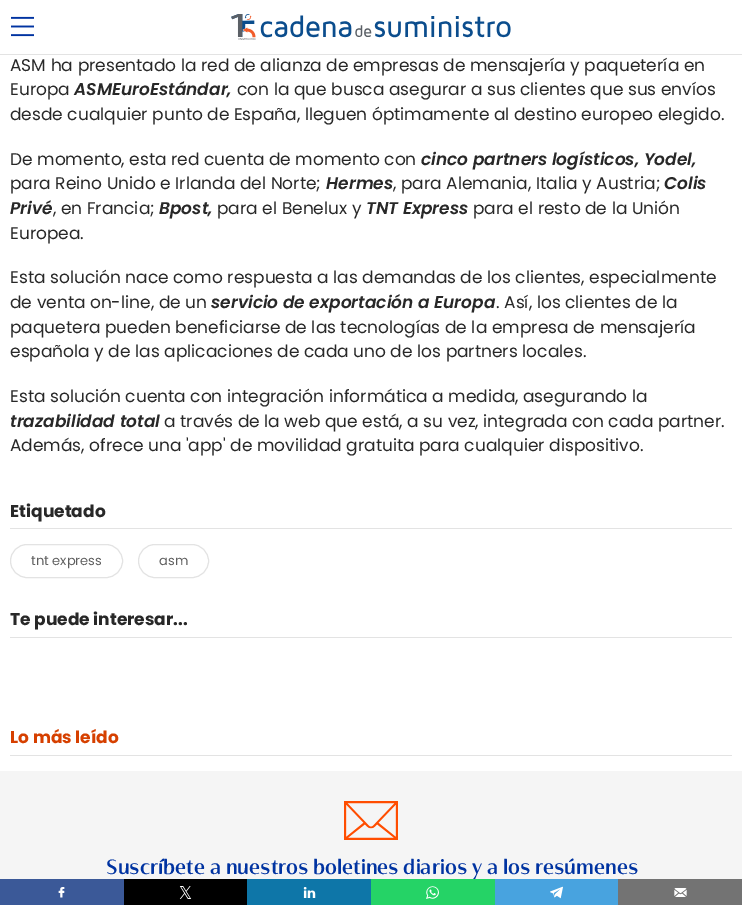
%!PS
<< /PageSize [742 905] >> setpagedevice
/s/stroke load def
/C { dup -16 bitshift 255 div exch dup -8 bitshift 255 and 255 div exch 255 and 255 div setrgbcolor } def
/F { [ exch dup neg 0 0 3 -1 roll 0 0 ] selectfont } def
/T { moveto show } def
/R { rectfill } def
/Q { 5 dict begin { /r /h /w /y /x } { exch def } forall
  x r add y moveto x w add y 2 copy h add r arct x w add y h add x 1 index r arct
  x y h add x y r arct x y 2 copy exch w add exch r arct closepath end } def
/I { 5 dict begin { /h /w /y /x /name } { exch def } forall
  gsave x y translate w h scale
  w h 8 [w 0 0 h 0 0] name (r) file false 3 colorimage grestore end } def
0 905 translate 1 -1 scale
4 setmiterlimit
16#FFFFFF C
0 0 742 905 R
16#E3E3E3 C
0 54 742 1 R
(1.rgb) 231 14 280 26 I
(2.rgb) 11 16 23 21 I
/Poppins-Regular 17 F
16#282828 C
(ASM ha presentado la red de alianza de empresas de mensajería y paquetería en) 10 71 T
(Europa) 10 95 T
/Poppins-SemiBoldItalic 17 F
(ASMEuroEstándar,) 74 95 T
/Poppins-Regular 17 F
(con la que busca asegurar a sus clientes que sus envíos) 237 95 T
(desde cualquier punto de España, lleguen óptimamente al destino europeo elegido.) 10 120 T
(De momento, esta red cuenta de momento con) 10 165 T
/Poppins-SemiBoldItalic 17 F
(cinco partners logísticos, Yodel,) 421 165 T
/Poppins-Regular 17 F
(para Reino Unido e Irlanda del Norte;) 10 189 T
/Poppins-SemiBoldItalic 17 F
(Hermes) 326 189 T
/Poppins-Regular 17 F
(, para Alemania, Italia y Austria;) 393 189 T
/Poppins-SemiBoldItalic 17 F
(Colis) 664 189 T
(Privé) 10 214 T
/Poppins-Regular 17 F
(, en Francia;) 53 214 T
/Poppins-SemiBoldItalic 17 F
(Bpost,) 159 214 T
/Poppins-Regular 17 F
(para el Benelux y) 217 214 T
/Poppins-SemiBoldItalic 17 F
(TNT Express) 366 214 T
/Poppins-Regular 17 F
(para el resto de la Unión) 473 214 T
(Europea.) 10 239 T
(Esta solución nace como respuesta a las demandas de los clientes, especialmente) 10 283 T
(de venta on-line, de un) 10 308 T
/Poppins-SemiBoldItalic 17 F
(servicio de exportación a Europa) 211 308 T
/Poppins-Regular 17 F
(. Así, los clientes de la) 496 308 T
(paquetera pueden beneficiarse de las tecnologías de la empresa de mensajería) 10 333 T
(española y de las aplicaciones de cada uno de los partners locales.) 10 357 T
(Esta solución cuenta con integración informática a medida, asegurando la) 10 402 T
/Poppins-SemiBoldItalic 17 F
(trazabilidad total) 10 427 T
/Poppins-Regular 17 F
(a través de la web que está, a su vez, integrada con cada partner.) 164 427 T
(Además, ofrece una 'app' de movilidad gratuita para cualquier dispositivo.) 10 451 T
16#E3E3E3 C
10 528 722 1 R
/Poppins-Bold 17 F
16#282828 C
(Etiquetado) 10 517 T
16#E3E3E3 C
10.5 544.5 112 33 16.5 Q s
/Poppins-Regular 13 F
16#5F5F5F C
(tnt express) 31 565 T
16#E3E3E3 C
138.5 544.5 70 33 16.5 Q s
16#5F5F5F C
(asm) 159 565 T
16#3B5998 C
0 879 124 26 R
(3.rgb) 58 887 7 11 I
16#000000 C
124 879 123 26 R
(4.rgb) 179 886 13 13 I
16#0E76A8 C
247 879 124 26 R
(5.rgb) 303 887 13 11 I
16#25D366 C
371 879 124 26 R
(6.rgb) 426 886 13 13 I
16#48A3DF C
495 879 123 26 R
(7.rgb) 550 886 13 13 I
16#737373 C
618 879 124 26 R
(8.rgb) 674 888 13 9 I
16#E3E3E3 C
10 637 722 1 R
/Poppins-Bold 17 F
16#282828 C
(Te puede interesar...) 10 625 T
16#E3E3E3 C
10 755 722 1 R
16#D64000 C
(Lo más leído) 10 743 T
16#F5F5F5 C
0 771 742 108 R
(9.rgb) 344 801 54 39 I
/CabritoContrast-ExtraBold 20.6 F
16#0033A1 C
(Suscríbete a nuestros boletines diarios y a los resúmenes) 106 874 T
showpage
